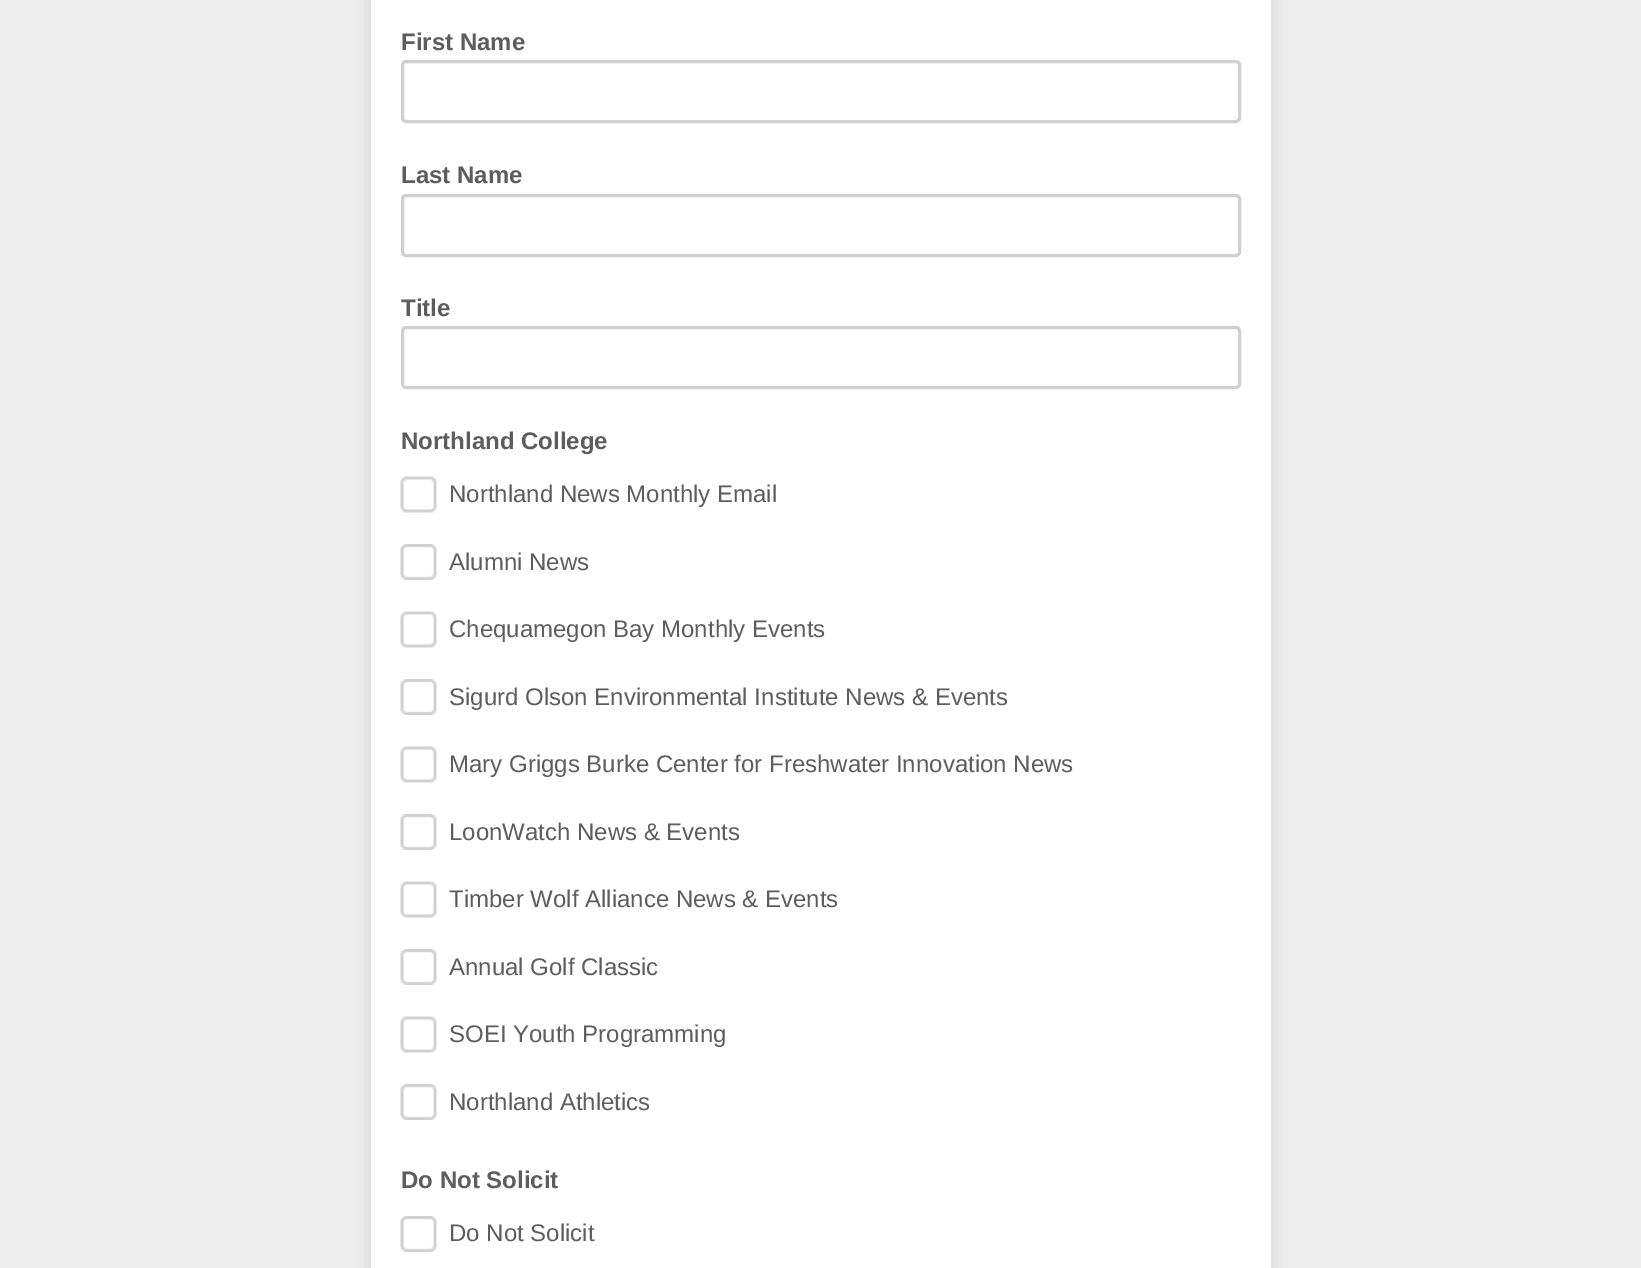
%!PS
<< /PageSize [1641 1268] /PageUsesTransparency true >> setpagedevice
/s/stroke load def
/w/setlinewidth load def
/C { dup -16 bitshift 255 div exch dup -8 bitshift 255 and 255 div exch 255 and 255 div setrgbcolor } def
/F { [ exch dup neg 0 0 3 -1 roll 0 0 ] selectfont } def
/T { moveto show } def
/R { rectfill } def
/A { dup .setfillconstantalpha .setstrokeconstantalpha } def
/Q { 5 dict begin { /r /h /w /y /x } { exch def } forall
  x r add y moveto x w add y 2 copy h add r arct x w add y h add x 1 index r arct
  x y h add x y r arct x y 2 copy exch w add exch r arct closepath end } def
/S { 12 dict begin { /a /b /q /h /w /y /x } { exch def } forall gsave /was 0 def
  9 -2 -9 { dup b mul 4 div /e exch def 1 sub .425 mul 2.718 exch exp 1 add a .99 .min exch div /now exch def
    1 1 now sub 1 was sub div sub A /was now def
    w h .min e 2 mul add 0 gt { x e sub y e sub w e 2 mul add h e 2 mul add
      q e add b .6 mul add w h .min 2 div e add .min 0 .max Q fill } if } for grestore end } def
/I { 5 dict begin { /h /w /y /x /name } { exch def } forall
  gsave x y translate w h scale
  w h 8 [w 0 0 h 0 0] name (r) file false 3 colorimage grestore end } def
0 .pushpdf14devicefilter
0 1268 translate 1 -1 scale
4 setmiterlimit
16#EEEEEE C
0 0 1641 1268 R
16#0D1216 C
371 -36 900 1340 9 9 .12 S
16#FFFFFF C
371 0 900 1268 R
/LiberationSans-Bold 24 F
16#5D5D5D C
(First Name) 401 50 T
16#D0D0D0 C
3 w
402.5 61.5 837 60 3.5 Q s
16#5D5D5D C
(Last Name) 401 183 T
16#D0D0D0 C
402.5 195.5 837 60 3.5 Q s
16#5D5D5D C
(Title) 401 316 T
16#D0D0D0 C
402.5 327.5 837 60 3.5 Q s
16#5D5D5D C
(Northland College) 401 449 T
(1.rgb) 400 476 37 37 I
/LiberationSans-Regular 24 F
(Northland News Monthly Email) 449 502 T
(2.rgb) 400 544 37 36 I
(Alumni News) 449 570 T
(1.rgb) 400 611 37 37 I
(Chequamegon Bay Monthly Events) 449 637 T
(2.rgb) 400 679 37 36 I
(Sigurd Olson Environmental Institute News & Events) 449 705 T
(1.rgb) 400 746 37 37 I
(Mary Griggs Burke Center for Freshwater Innovation News) 449 772 T
(2.rgb) 400 814 37 36 I
(LoonWatch News & Events) 449 840 T
(1.rgb) 400 881 37 37 I
(Timber Wolf Alliance News & Events) 449 907 T
(2.rgb) 400 949 37 36 I
(Annual Golf Classic) 449 975 T
(1.rgb) 400 1016 37 37 I
(SOEI Youth Programming) 449 1042 T
(2.rgb) 400 1084 37 36 I
(Northland Athletics) 449 1110 T
/LiberationSans-Bold 24 F
(Do Not Solicit) 401 1188 T
(2.rgb) 400 1216 37 36 I
/LiberationSans-Regular 24 F
(Do Not Solicit) 449 1241 T
.poppdf14devicefilter showpage
